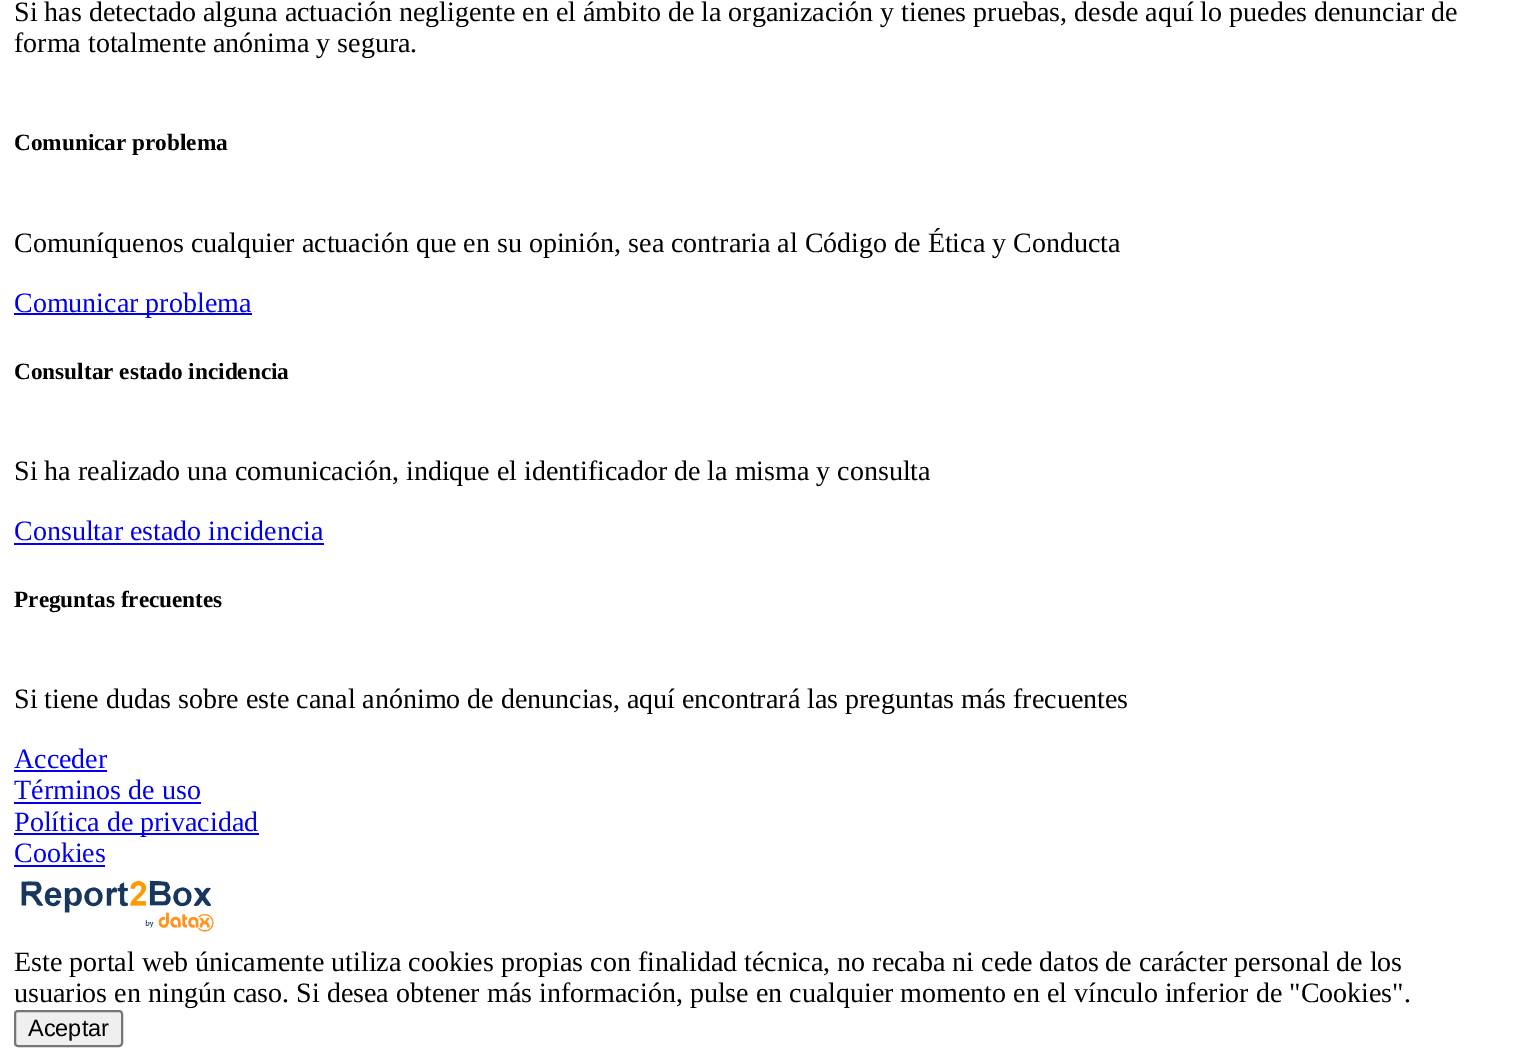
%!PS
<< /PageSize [1513 1060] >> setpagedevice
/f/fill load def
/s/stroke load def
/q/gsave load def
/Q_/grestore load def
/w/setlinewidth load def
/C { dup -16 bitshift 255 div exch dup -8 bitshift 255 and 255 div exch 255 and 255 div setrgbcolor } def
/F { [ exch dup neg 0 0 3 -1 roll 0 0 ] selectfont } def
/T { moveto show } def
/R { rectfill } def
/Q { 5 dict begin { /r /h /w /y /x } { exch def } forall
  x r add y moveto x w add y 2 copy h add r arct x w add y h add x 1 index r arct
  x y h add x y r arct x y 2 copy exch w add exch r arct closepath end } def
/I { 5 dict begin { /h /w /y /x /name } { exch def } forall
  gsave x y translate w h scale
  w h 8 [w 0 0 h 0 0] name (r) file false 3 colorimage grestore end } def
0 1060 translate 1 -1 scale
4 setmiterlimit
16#FFFFFF C
0 0 1513 1060 R
/LiberationSerif-Regular 28 F
16#000000 C
(Si has detectado alguna actuación negligente en el ámbito de la organización y tienes pruebas, desde aquí lo puedes denunciar de) 14 21 T
(forma totalmente anónima y segura.) 14 52 T
/LiberationSerif-Bold 23.25 F
(Comunicar problema) 14 150 T
/LiberationSerif-Regular 28 F
(Comuníquenos cualquier actuación que en su opinión, sea contraria al Código de Ética y Conducta) 14 252 T
16#0000EE C
14 313 238 2 R
(Comunicar problema) 14 312 T
/LiberationSerif-Bold 23.25 F
16#000000 C
(Consultar estado incidencia) 14 379 T
/LiberationSerif-Regular 28 F
(Si ha realizado una comunicación, indique el identificador de la misma y consulta) 14 480 T
16#0000EE C
(Consultar estado incidencia) 14 540 T
14 543 310 2 R
/LiberationSerif-Bold 23.25 F
16#000000 C
(Preguntas frecuentes) 14 607 T
/LiberationSerif-Regular 28 F
(Si tiene dudas sobre este canal anónimo de denuncias, aquí encontrará las preguntas más frecuentes) 14 708 T
16#0000EE C
(Acceder) 14 768 T
14 770 93 2 R
(Términos de uso) 14 799 T
14 802 187 2 R
14 833 245 2 R
(Política de privacidad) 14 831 T
(Cookies) 14 862 T
14 865 91 2 R
(1.rgb) 21 880 193 52 I
16#000000 C
(Este portal web únicamente utiliza cookies propias con finalidad técnica, no recaba ni cede datos de carácter personal de los) 14 971 T
(usuarios en ningún caso. Si desea obtener más información, pulse en cualquier momento en el vínculo inferior de "Cookies".) 14 1002 T
16#EFEFEF C
15 1011 107 35 3 Q q f Q_
16#767676 C
2 w
s
/LiberationSans-Regular 23.5 F
16#000000 C
(Aceptar) 28 1036 T
showpage
